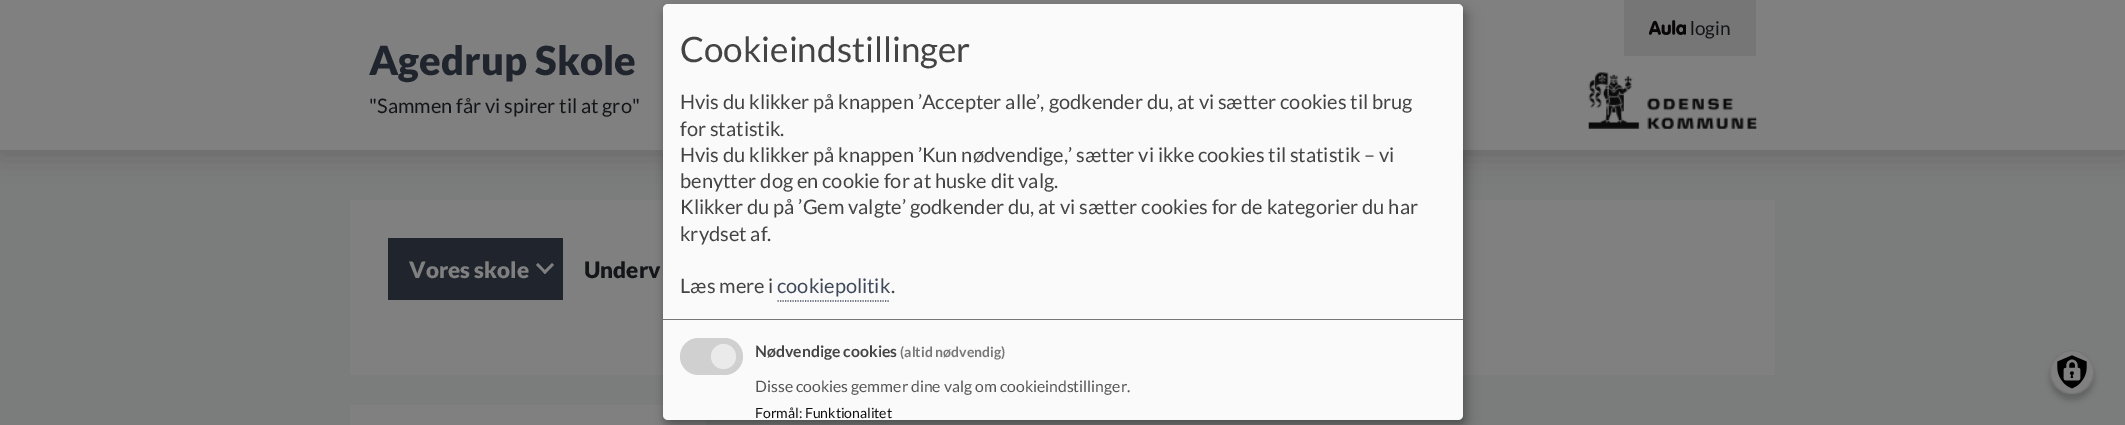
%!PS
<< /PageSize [2125 425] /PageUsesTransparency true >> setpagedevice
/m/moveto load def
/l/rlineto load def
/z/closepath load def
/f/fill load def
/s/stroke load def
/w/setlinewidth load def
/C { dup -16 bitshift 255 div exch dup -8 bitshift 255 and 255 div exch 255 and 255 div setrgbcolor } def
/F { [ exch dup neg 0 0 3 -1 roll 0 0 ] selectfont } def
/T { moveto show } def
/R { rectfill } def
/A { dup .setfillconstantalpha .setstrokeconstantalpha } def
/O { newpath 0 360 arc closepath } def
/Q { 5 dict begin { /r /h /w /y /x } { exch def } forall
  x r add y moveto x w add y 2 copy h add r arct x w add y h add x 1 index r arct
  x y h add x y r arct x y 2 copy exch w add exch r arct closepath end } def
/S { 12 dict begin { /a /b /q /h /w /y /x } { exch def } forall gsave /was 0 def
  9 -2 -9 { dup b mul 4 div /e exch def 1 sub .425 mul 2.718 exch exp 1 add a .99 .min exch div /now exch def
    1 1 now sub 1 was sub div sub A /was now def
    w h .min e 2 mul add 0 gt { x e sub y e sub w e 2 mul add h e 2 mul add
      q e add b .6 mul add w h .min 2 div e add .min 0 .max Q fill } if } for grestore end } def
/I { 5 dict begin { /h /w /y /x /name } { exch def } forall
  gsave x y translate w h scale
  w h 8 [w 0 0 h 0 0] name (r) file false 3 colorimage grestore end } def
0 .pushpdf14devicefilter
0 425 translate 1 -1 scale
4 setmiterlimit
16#7B7C7C C
0 0 2125 425 R
16#1A1A1A C
0 3 2125 150 0 14 .2 S
16#808080 C
0 0 2125 150 R
16#767676 C
1624 0 132 56 R
(1.rgb) 1649 20 37 15 I
/Lato-Regular 19 F
16#141518 C
(login) 1690 35 T
(2.rgb) 1588 72 169 57 I
/Lato-Black 40 F
16#20252D C
(Agedrup Skole) 369 75 T
/Lato-Regular 20 F
16#141518 C
("Sammen får vi spirer til at gro") 369 113 T
16#808080 C
350 200 1425 175 R
16#20252D C
388 238 175 62 R
/Lato-Black 22.5 F
16#808080 C
(Vores skole) 409 278 T
554 265 m -9 9 l -2 -2 l 9 -9 l z f
546.5 272 m -1.5 2 l -9 -9 l 2 -2 l z f
16#141518 C
(Underv) 584 278 T
16#808080 C
350 405 356 20 R
16#000000 C
669 10 800 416 5 6 .19 S
663 9 800 416 5 4 .2 S
16#FAFAFA C
663 4 800 416 5 Q f
16#777777 C
663 319 800 1 R
/Lato-Regular 35 F
16#444444 C
(Cookieindstillinger) 680 62 T
/Lato-Regular 20 F
(Hvis du klikker på knappen ’Accepter alle’, godkender du, at vi sætter cookies til brug) 680 109 T
(for statistik.) 680 136 T
(Hvis du klikker på knappen ’Kun nødvendige,’ sætter vi ikke cookies til statistik – vi) 680 162 T
(benytter dog en cookie for at huske dit valg.) 680 188 T
(Klikker du på ’Gem valgte’ godkender du, at vi sætter cookies for de kategorier du har) 680 214 T
(krydset af.) 680 241 T
(Læs mere i) 680 293 T
16#404959 C
1.2 w
[1.25 1.25] 0 setdash
777.5 301 m 112.5 0 l s
(cookiepolitik) 777 293 T
16#444444 C
(.) 891 293 T
16#D0D0D0 C
680 338 63 37 18.5 Q f
16#EAEAEA C
723.5 356.5 12.5 O f
/Lato-Bold 15.75 F
16#444444 C
(Nødvendige cookies) 755 357 T
/Lato-Bold 14 F
16#777777 C
(\(altid nødvendig\)) 900 357 T
/Lato-Regular 15.75 F
16#555555 C
(Disse cookies gemmer dine valg om cookieindstillinger.) 755 392 T
/Lato-Regular 14 F
16#111111 C
(Formål: Funktionalitet) 755 418 T
16#000000 C
2050 356 44 44 22 3 .2 S
16#808080 C
2072 372 22 O f
(3.rgb) 2057 355 30 34 I
16#757575 C
1 w
[] 0 setdash
2072 372 21.5 O s
.poppdf14devicefilter showpage
